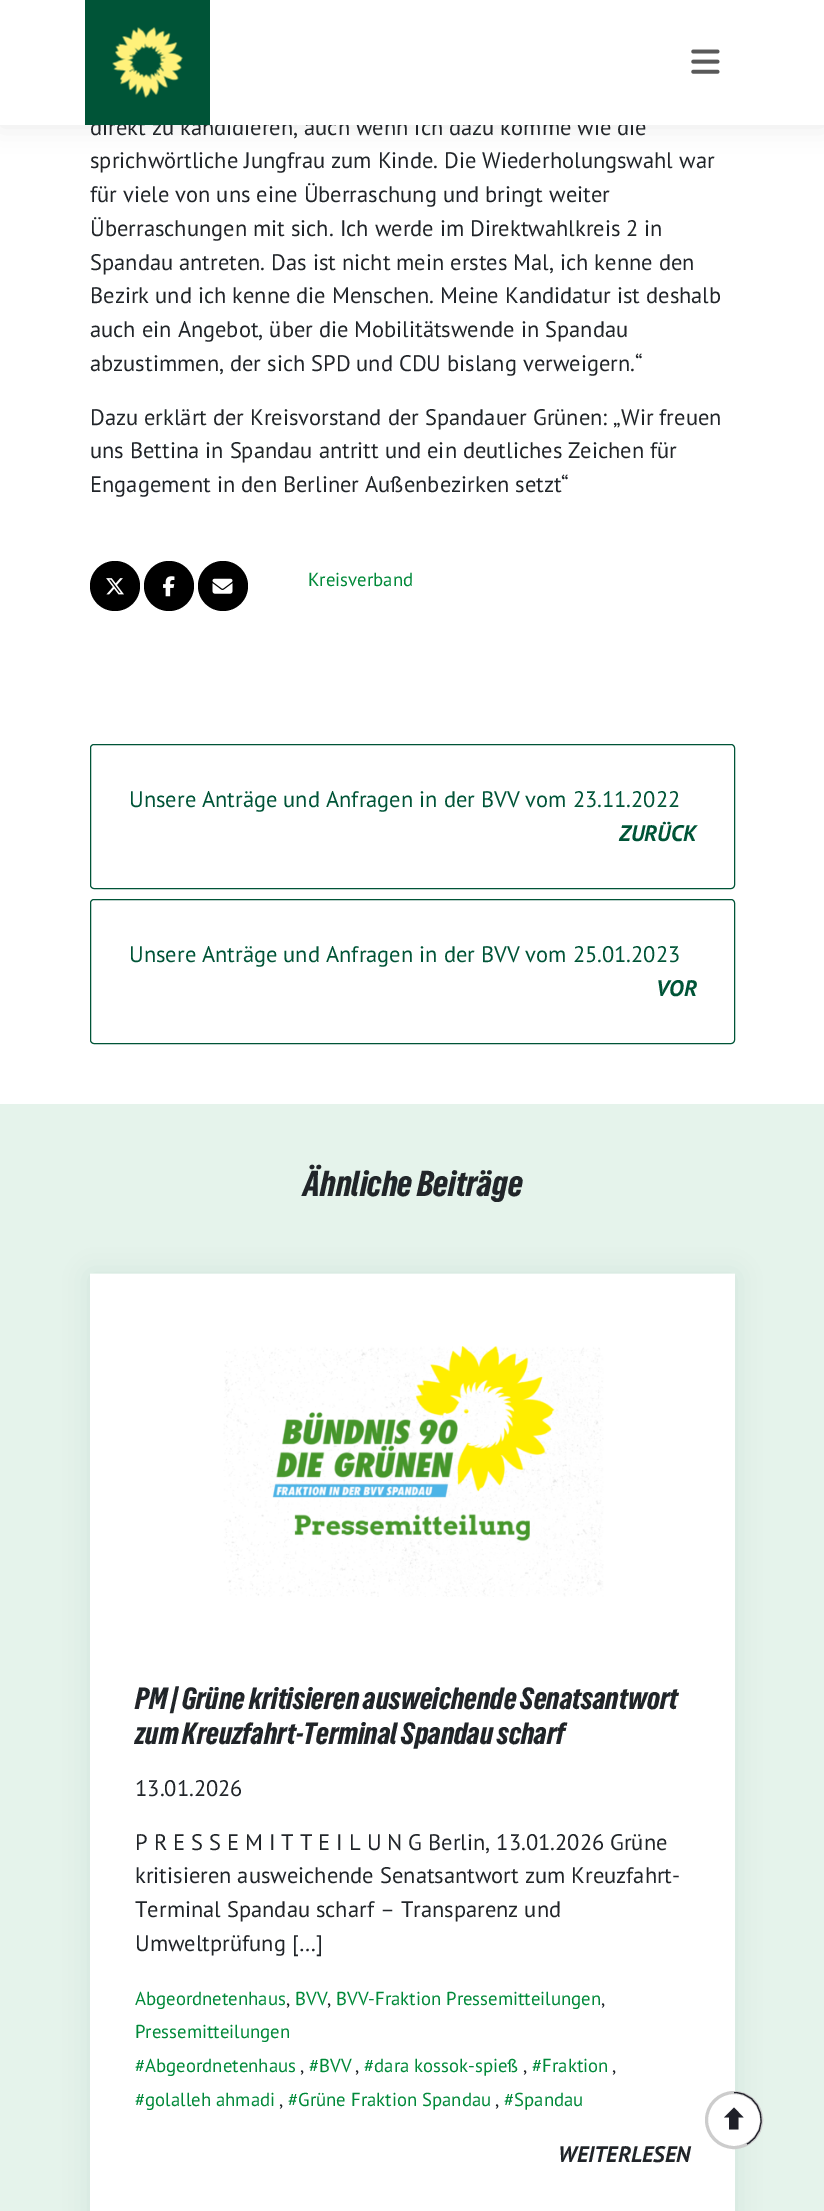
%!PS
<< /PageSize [824 2211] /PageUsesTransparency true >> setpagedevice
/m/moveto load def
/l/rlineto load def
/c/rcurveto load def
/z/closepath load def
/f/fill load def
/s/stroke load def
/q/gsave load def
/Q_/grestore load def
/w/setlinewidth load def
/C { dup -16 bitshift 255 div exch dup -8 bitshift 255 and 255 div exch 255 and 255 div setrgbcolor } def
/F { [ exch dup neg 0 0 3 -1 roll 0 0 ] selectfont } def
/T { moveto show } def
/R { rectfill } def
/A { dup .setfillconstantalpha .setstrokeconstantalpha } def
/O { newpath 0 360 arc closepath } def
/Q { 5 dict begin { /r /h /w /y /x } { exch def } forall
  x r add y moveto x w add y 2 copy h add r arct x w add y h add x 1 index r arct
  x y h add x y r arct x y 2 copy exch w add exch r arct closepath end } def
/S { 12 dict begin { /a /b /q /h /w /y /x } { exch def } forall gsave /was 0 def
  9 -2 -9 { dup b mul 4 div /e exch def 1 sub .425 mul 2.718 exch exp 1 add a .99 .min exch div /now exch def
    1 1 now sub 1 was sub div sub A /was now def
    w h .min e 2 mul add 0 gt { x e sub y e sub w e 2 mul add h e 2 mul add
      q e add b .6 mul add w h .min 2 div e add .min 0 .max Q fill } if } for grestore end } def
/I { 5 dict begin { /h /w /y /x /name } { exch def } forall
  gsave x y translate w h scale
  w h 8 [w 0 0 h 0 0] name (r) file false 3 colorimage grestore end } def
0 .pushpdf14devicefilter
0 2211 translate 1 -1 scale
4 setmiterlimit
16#FFFFFF C
0 0 824 2211 R
16#000000 C
0 1 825 125 0 12.5 .08 S
/PTSans-Regular 22.5 F
16#212529 C
(direkt zu kandidieren, auch wenn ich dazu komme wie die) 90 135 T
16#FFFFFF C
0 0 824 125 R
16#005437 C
85 0 125 125 R
(1.rgb) 112 27 71 71 I
(2.rgb) 691 49 29 25 I
16#212529 C
(sprichwörtliche Jungfrau zum Kinde. Die Wiederholungswahl war) 90 168 T
(für viele von uns eine Überraschung und bringt weiter) 90 202 T
(Überraschungen mit sich. Ich werde im Direktwahlkreis 2 in) 90 236 T
(Spandau antreten. Das ist nicht mein erstes Mal, ich kenne den) 90 270 T
(Bezirk und ich kenne die Menschen. Meine Kandidatur ist deshalb) 90 303 T
(auch ein Angebot, über die Mobilitätswende in Spandau) 90 337 T
(abzustimmen, der sich SPD und CDU bislang verweigern.“) 90 371 T
(Dazu erklärt der Kreisvorstand der Spandauer Grünen: „Wir freuen) 90 425 T
(uns Bettina in Spandau antritt und ein deutliches Zeichen für) 90 458 T
(Engagement in den Berliner Außenbezirken setzt“) 90 492 T
16#000000 C
115 586 25 O f
(3.rgb) 106 578 18 17 I
169 586 25 O f
(4.rgb) 163 576 12 21 I
223 586 25 O f
(5.rgb) 212 578 21 16 I
/PTSans-Regular 18.75 F
16#008939 C
(Kreisverband) 308 586 T
16#005437 C
90.5 744.5 644 144 3.5 Q s
/PTSans-Regular 22.5 F
(Unsere Anträge und Anfragen in der BVV vom 23.11.2022) 129 807 T
/PTSans-BoldItalic 22.5 F
(ZURÜCK) 619 841 T
90.5 899.5 644 144 3.5 Q s
/PTSans-Regular 22.5 F
(Unsere Anträge und Anfragen in der BVV vom 25.01.2023) 129 962 T
/PTSans-BoldItalic 22.5 F
(VOR) 656 996 T
16#E5F3EB C
0 1104 824 1107 R
/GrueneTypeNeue-Regular 33.75 F
16#212529 C
(Ähnliche Beiträge) 303 1196 T
16#005437 C
90 1275 645 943 0 12.5 .09 S
16#FFFFFF C
90 1597 645 614 R
(6.rgb) 90 1273 645 324 I
/GrueneTypeNeue-Regular 28.75 F
16#212529 C
(PM | Grüne kritisieren ausweichende Senatsantwort) 135 1709 T
(zum Kreuzfahrt-Terminal Spandau scharf) 135 1744 T
/PTSans-Regular 22.5 F
(13.01.2026) 135 1796 T
(P R E S S E M I T T E I L U N G Berlin, 13.01.2026 Grüne) 135 1850 T
(kritisieren ausweichende Senatsantwort zum Kreuzfahrt-) 135 1883 T
(Terminal Spandau scharf – Transparenz und) 135 1917 T
(Umweltprüfung […]) 135 1951 T
/PTSans-Regular 18.75 F
16#008939 C
(Abgeordnetenhaus) 135 2005 T
16#212529 C
(,) 286 2005 T
16#008939 C
(BVV) 295 2005 T
16#212529 C
(,) 327 2005 T
16#008939 C
(BVV-Fraktion Pressemitteilungen) 336 2005 T
16#212529 C
(,) 601 2005 T
16#008939 C
(Pressemitteilungen) 135 2038 T
(#Abgeordnetenhaus) 135 2072 T
16#212529 C
(,) 300 2072 T
16#008939 C
(#BVV) 309 2072 T
16#212529 C
(,) 355 2072 T
16#008939 C
(#dara kossok-spieß) 364 2072 T
16#212529 C
(,) 523 2072 T
16#008939 C
(#Fraktion) 532 2072 T
16#212529 C
(,) 612 2072 T
16#008939 C
(#golalleh ahmadi) 135 2106 T
16#212529 C
(,) 279 2106 T
16#008939 C
(#Grüne Fraktion Spandau) 288 2106 T
16#212529 C
(,) 495 2106 T
16#008939 C
(#Spandau) 504 2106 T
/PTSans-BoldItalic 22.5 F
16#212529 C
(WEITERLESEN) 558 2162 T
16#FFFFFF C
734 2120 27.5 O q f Q_
16#CCCCCC C
3 w
s
16#1F2029 C
1.1 w
734 2092.5 m 28.5 0 37.5 38 13 51.5 c s
734 2107.5 m 9.5 10 l -5 0 l 0 12 l -9.5 0 l 0 -12 l -5 0 l z f
.poppdf14devicefilter showpage
